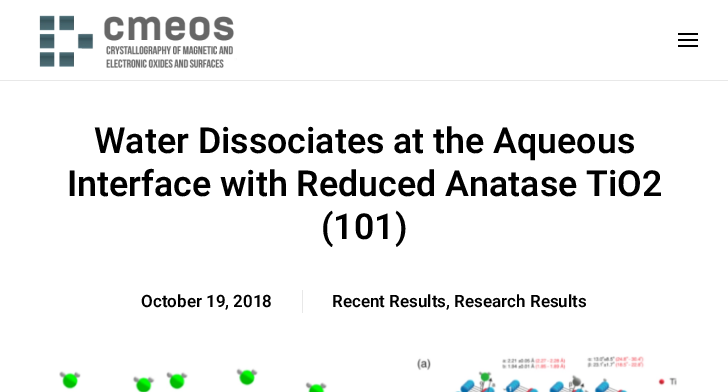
%!PS
<< /PageSize [728 392] >> setpagedevice
/C { dup -16 bitshift 255 div exch dup -8 bitshift 255 and 255 div exch 255 and 255 div setrgbcolor } def
/F { [ exch dup neg 0 0 3 -1 roll 0 0 ] selectfont } def
/T { moveto show } def
/R { rectfill } def
/I { 5 dict begin { /h /w /y /x /name } { exch def } forall
  gsave x y translate w h scale
  w h 8 [w 0 0 h 0 0] name (r) file false 3 colorimage grestore end } def
0 392 translate 1 -1 scale
4 setmiterlimit
16#FFFFFF C
0 0 728 392 R
16#E8E8E8 C
0 80 728 1 R
(1.rgb) 39 15 198 53 I
16#000000 C
678 33 20 2 R
678 39 20 2 R
678 45 20 2 R
/Heebo-SemiBold 35.75 F
(Water Dissociates at the Aqueous) 94 153 T
(Interface with Reduced Anatase TiO2) 67 196 T
(\(101\)) 321 239 T
/Heebo-SemiBold 17 F
(October 19, 2018) 141 307 T
16#E8E8E8 C
302 290 1 23 R
16#000000 C
(Recent Results, Research Results) 332 307 T
(2.rgb) 59 356 618 36 I
showpage
